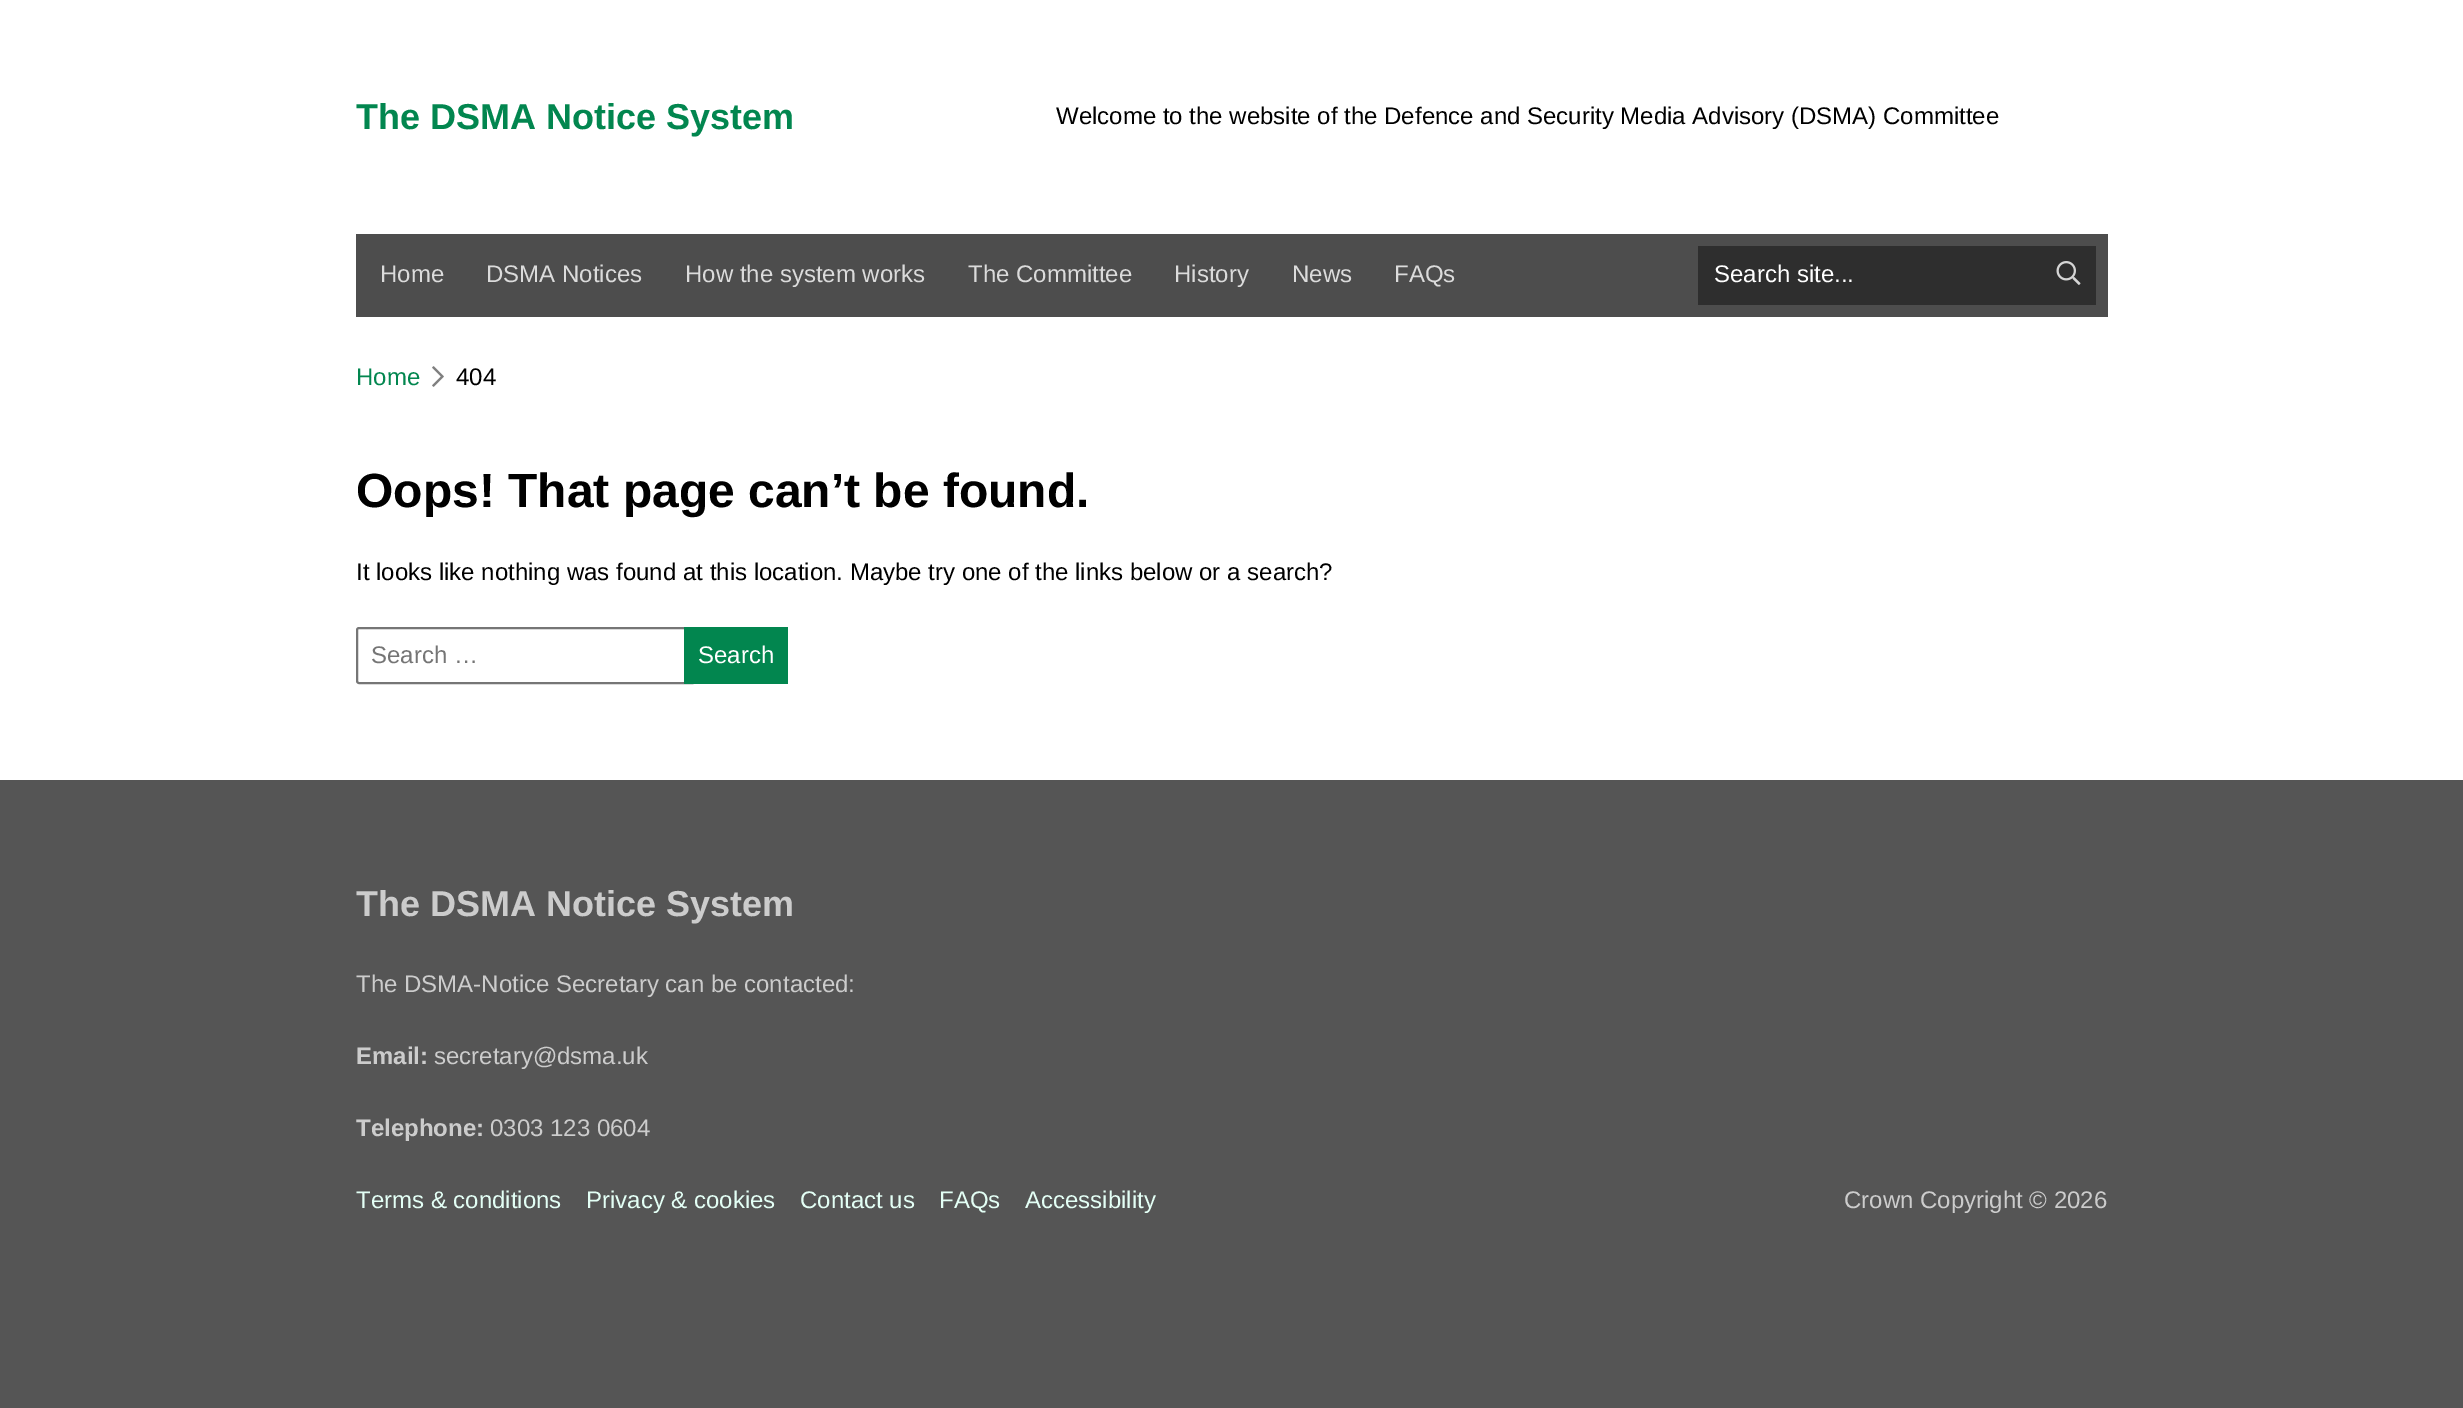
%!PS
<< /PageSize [2463 1408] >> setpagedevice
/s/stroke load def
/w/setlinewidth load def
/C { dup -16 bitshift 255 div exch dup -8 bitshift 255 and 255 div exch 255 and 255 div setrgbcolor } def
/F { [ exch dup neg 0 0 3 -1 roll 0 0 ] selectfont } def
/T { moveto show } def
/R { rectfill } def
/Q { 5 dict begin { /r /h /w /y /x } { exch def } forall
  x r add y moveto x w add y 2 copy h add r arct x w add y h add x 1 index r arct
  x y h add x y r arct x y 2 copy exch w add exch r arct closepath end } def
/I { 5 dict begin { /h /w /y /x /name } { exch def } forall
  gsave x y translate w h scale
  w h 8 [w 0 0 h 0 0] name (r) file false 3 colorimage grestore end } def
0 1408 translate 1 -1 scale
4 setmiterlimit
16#555555 C
0 0 2463 1408 R
16#FFFFFF C
0 0 2463 780 R
/LiberationSans-Bold 36 F
16#02864F C
(The DSMA Notice System) 356 129 T
/LiberationSans-Regular 24 F
16#000000 C
(Welcome to the website of the Defence and Security Media Advisory \(DSMA\) Committee) 1056 124 T
16#4D4D4D C
356 234 1752 83 R
16#DBDBDB C
(Home) 380 282 T
(DSMA Notices) 486 282 T
(How the system works) 685 282 T
(The Committee) 968 282 T
(History) 1174 282 T
(News) 1292 282 T
(FAQs) 1394 282 T
16#2E2E2E C
1698 246 398 59 R
16#FFFFFF C
(Search site...) 1714 282 T
(1.rgb) 2056 261 25 24 I
16#02864F C
(Home) 356 385 T
(2.rgb) 432 366 12 21 I
16#000000 C
(404) 456 385 T
/LiberationSans-Bold 48 F
(Oops! That page can’t be found.) 356 507 T
/LiberationSans-Regular 24 F
(It looks like nothing was found at this location. Maybe try one of the links below or a search?) 356 580 T
16#767676 C
2 w
357 628 338 55 2 Q s
16#757575 C
(Search …) 371 663 T
16#02864F C
684 627 104 57 R
16#FFFFFF C
(Search) 698 663 T
/LiberationSans-Bold 36 F
16#CCCCCC C
(The DSMA Notice System) 356 916 T
/LiberationSans-Regular 24 F
(The DSMA-Notice Secretary can be contacted:) 356 992 T
/LiberationSans-Bold 24 F
(Email:) 356 1064 T
/LiberationSans-Regular 24 F
(secretary@dsma.uk) 434 1064 T
/LiberationSans-Bold 24 F
(Telephone:) 356 1136 T
/LiberationSans-Regular 24 F
(0303 123 0604) 490 1136 T
16#E3FFF5 C
(Terms & conditions) 356 1208 T
(Privacy & cookies) 586 1208 T
(Contact us) 800 1208 T
(FAQs) 939 1208 T
(Accessibility) 1025 1208 T
16#CCCCCC C
(Crown Copyright © 2026) 1844 1208 T
showpage
